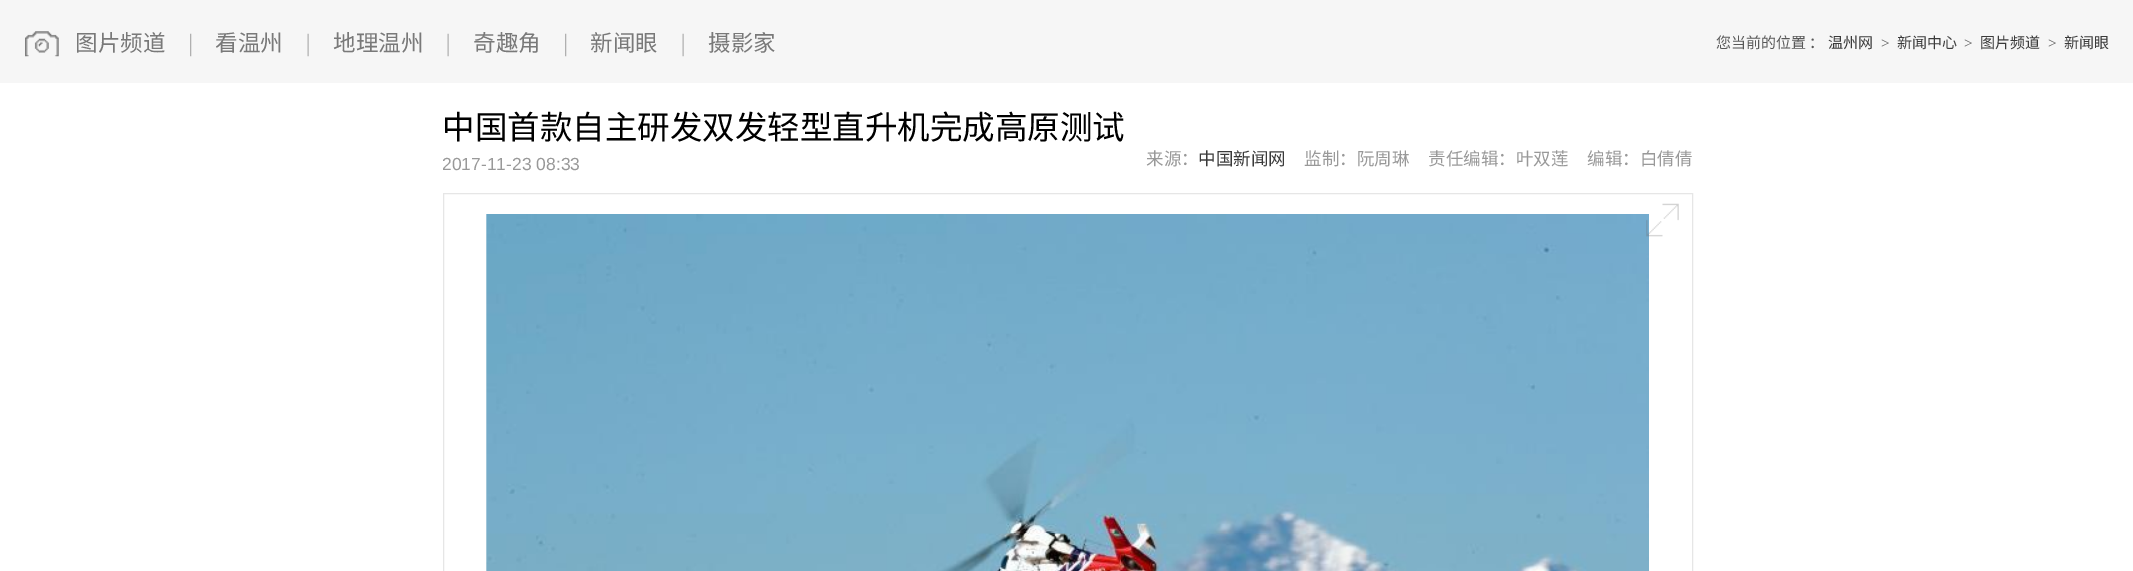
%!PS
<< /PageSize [2133 571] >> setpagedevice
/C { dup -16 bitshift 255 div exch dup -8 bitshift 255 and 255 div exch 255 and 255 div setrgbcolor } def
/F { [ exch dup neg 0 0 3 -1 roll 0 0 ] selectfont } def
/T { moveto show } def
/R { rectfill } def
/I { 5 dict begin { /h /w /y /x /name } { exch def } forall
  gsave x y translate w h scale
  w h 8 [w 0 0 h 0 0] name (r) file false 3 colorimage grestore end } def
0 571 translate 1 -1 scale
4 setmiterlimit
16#FFFFFF C
0 0 2133 571 R
16#F6F6F6 C
0 0 2133 83 R
(1.rgb) 25 31 34 26 I
/NotoSansCJKSC-Regular 22.5 F
16#797979 C
(图片频道) 75 51 T
(2.rgb) 190 33 2 24 I
(看温州) 215 51 T
(3.rgb) 307 33 2 24 I
(地理温州) 333 51 T
(3.rgb) 447 33 2 24 I
(奇趣角) 473 51 T
(2.rgb) 565 33 2 24 I
(新闻眼) 590 51 T
(3.rgb) 682 33 2 24 I
(摄影家) 708 51 T
/NotoSansCJKSC-Regular 15 F
16#585858 C
(您当前的位置 ：) 1716 48 T
16#3A3A3A C
(温州网) 1828 48 T
/LiberationSerif-Regular 15 F
16#585858 C
(>) 1881 48 T
/NotoSansCJKSC-Regular 15 F
16#3A3A3A C
(新闻中心) 1897 48 T
/LiberationSerif-Regular 15 F
16#585858 C
(>) 1964 48 T
/NotoSansCJKSC-Regular 15 F
16#3A3A3A C
(图片频道) 1980 48 T
/LiberationSerif-Regular 15 F
16#585858 C
(>) 2048 48 T
/NotoSansCJKSC-Regular 15 F
16#3A3A3A C
(新闻眼) 2064 48 T
/NotoSansCJKSC-Regular 32.5 F
16#000000 C
(中国首款自主研发双发轻型直升机完成高原测试) 442 139 T
/LiberationSans-Regular 17.5 F
16#999999 C
(2017-11-23 08:33) 442 170 T
/NotoSansCJKSC-Regular 17.5 F
(来源：) 1146 165 T
16#3A3A3A C
(中国新闻网) 1198 165 T
16#999999 C
(监制：阮周琳) 1304 165 T
(责任编辑：叶双莲) 1428 165 T
(编辑：白倩倩) 1587 165 T
16#E6E6E6 C
443.5 193.5 1249 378 rectstroke
(4.rgb) 486 214 1163 357 I
(5.rgb) 1646 203 33 34 I
showpage
